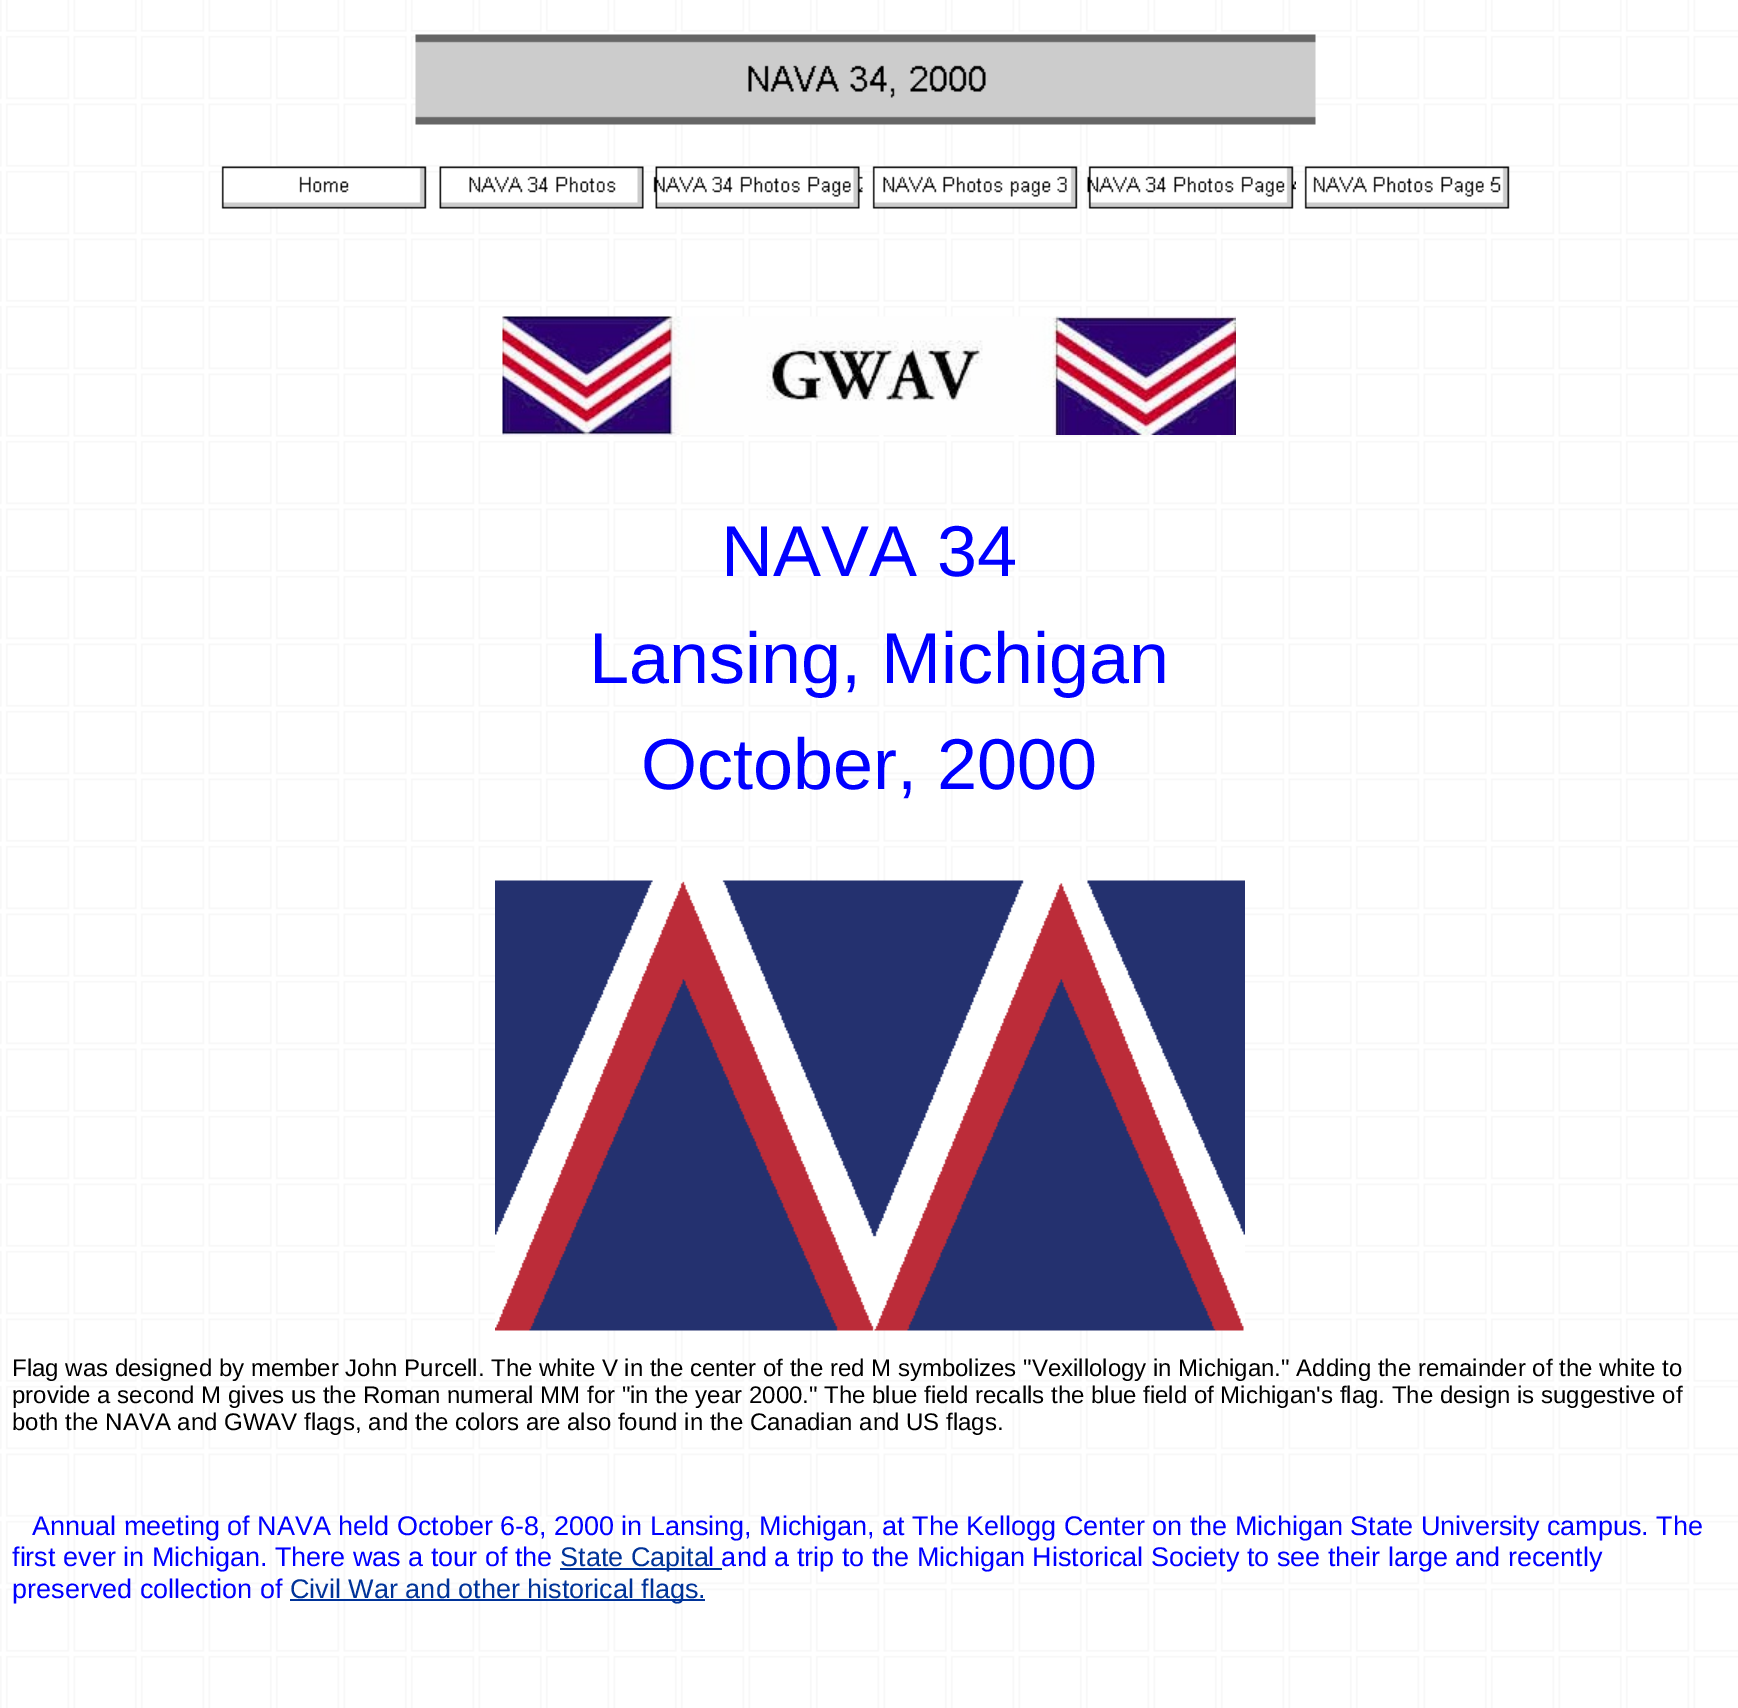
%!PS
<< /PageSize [1738 1708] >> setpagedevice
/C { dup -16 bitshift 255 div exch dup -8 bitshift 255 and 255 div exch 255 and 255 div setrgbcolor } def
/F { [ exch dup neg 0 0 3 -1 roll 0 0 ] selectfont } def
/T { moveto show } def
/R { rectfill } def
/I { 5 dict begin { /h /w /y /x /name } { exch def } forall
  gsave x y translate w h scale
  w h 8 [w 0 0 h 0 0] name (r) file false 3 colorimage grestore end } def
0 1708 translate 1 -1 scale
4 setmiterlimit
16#FFFFFF C
0 0 1738 1708 R
(1.rgb) 0 0 1738 1708 I
(2.rgb) 415 34 901 91 I
(3.rgb) 221 166 206 43 I
(4.rgb) 439 166 205 43 I
(5.rgb) 653 166 210 43 I
(6.rgb) 872 166 206 43 I
(7.rgb) 1087 166 209 43 I
(8.rgb) 1304 166 206 43 I
(9.rgb) 502 316 734 119 I
/LiberationSans-Regular 72 F
16#0000FF C
(NAVA 34) 721 576 T
(Lansing, Michigan) 589 683 T
(October, 2000) 641 789 T
(10.rgb) 495 880 750 451 I
/LiberationSans-Regular 24 F
16#000000 C
(Flag was designed by member John Purcell. The white V in the center of the red M symbolizes "Vexillology in Michigan." Adding the remainder of the white to) 12 1376 T
(provide a second M gives us the Roman numeral MM for "in the year 2000." The blue field recalls the blue field of Michigan's flag. The design is suggestive of) 12 1403 T
(both the NAVA and GWAV flags, and the colors are also found in the Canadian and US flags.) 12 1430 T
/LiberationSans-Regular 27 F
16#0000FF C
(Annual meeting of NAVA held October 6-8, 2000) 32 1535 T
(in Lansing, Michigan, at The Kellogg Center on the Michigan State University campus. The) 621 1535 T
(first ever in Michigan. There was a tour of the) 12 1566 T
16#003399 C
560 1568 133 2 R
(State Capita) 560 1566 T
693 1568 29 2 R
16#0000FF C
(l and a trip to the Michigan Historical Society to see their large and recently) 708 1566 T
(preserved collection of) 12 1598 T
16#003399 C
290 1599 415 2 R
(Civil War and other historical flags.) 290 1598 T
showpage
